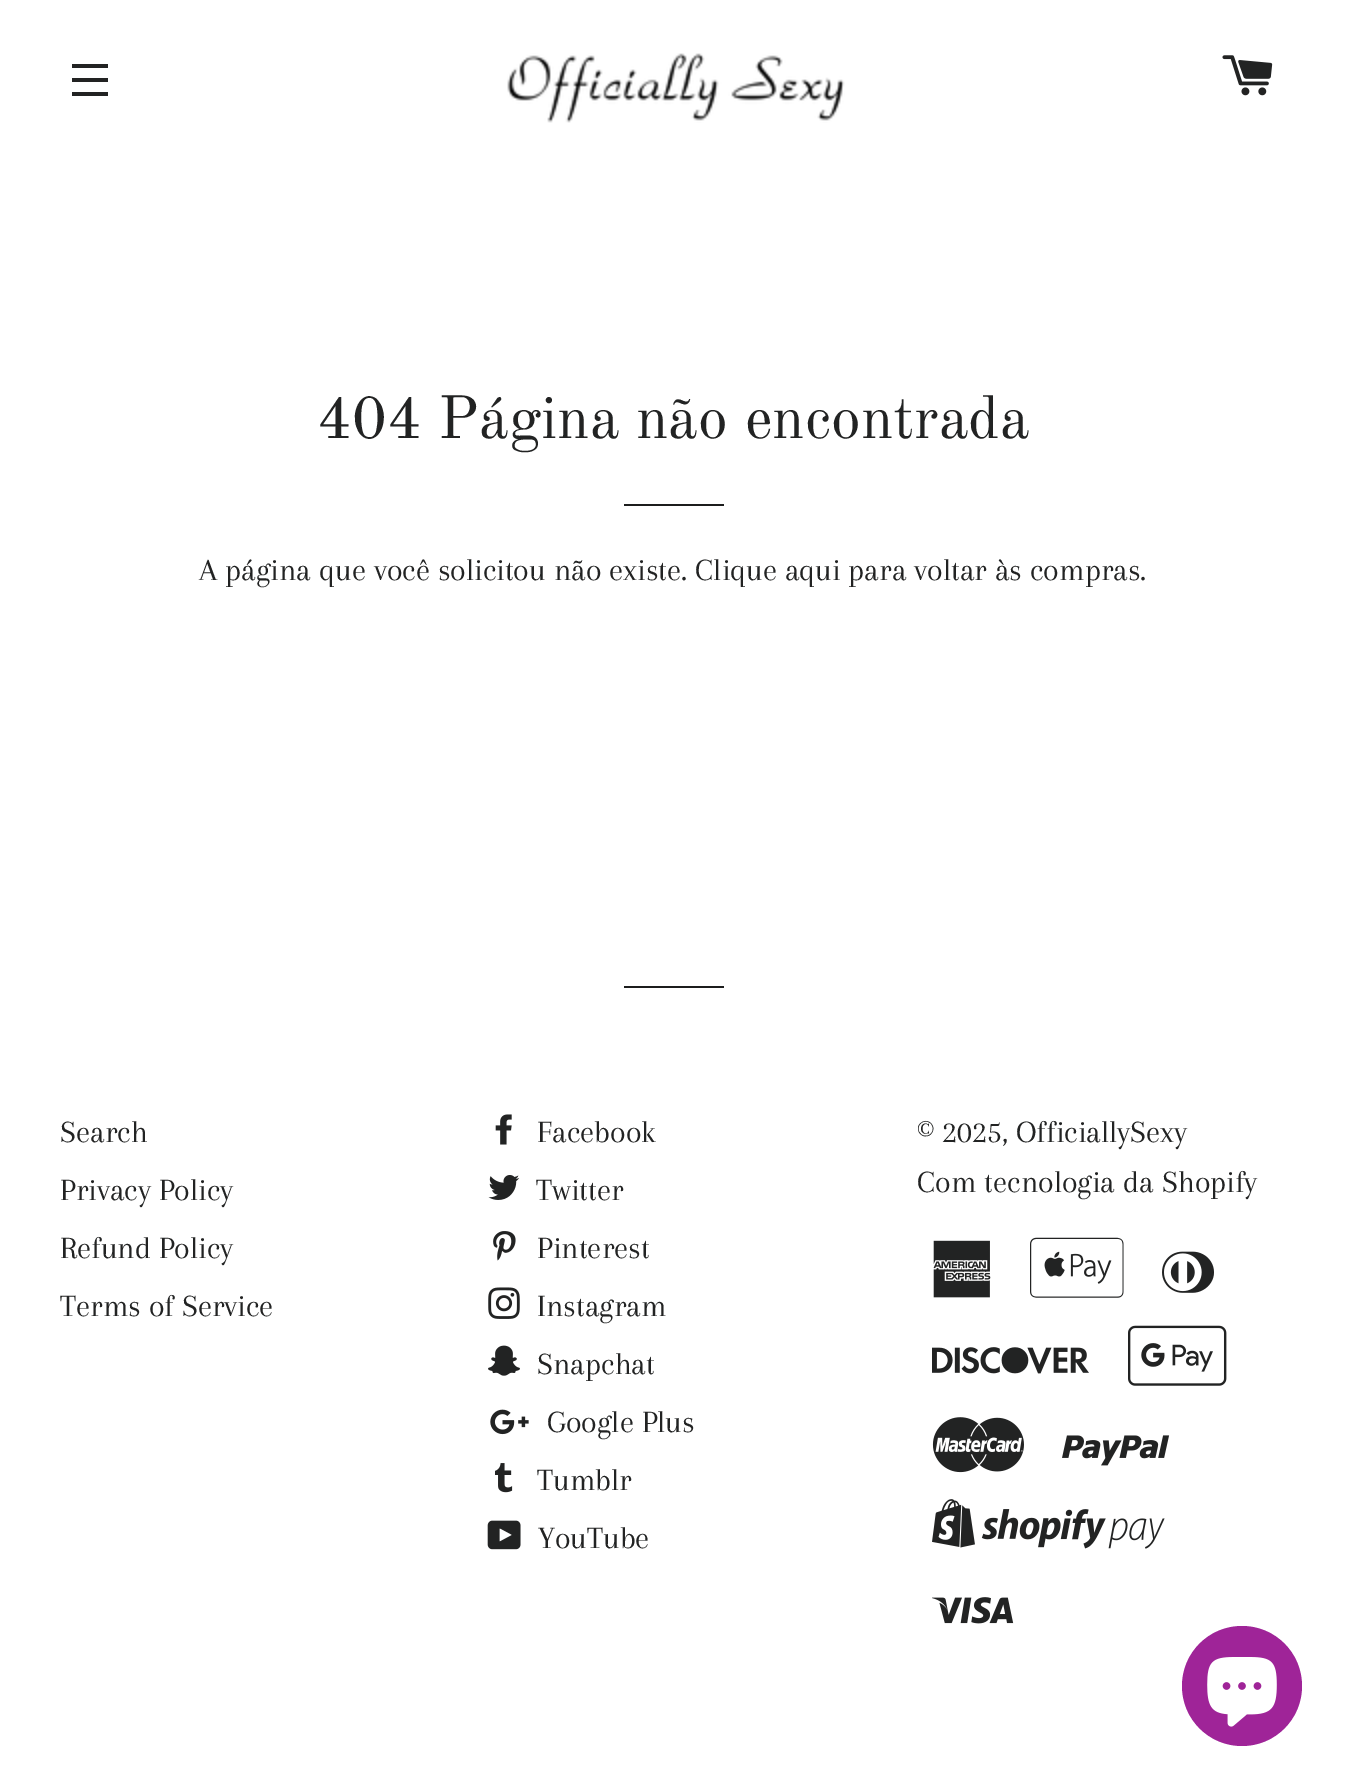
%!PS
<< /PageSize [1346 1788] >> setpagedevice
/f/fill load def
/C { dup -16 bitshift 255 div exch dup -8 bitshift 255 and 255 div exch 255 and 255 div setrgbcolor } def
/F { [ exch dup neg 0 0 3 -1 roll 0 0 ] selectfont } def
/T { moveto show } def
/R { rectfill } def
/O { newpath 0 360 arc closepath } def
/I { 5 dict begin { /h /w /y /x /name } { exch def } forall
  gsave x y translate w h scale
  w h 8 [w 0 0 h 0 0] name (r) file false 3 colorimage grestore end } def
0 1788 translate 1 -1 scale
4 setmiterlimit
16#FFFFFF C
0 0 1346 1788 R
16#222323 C
72 64 36 4 R
72 78 36 4 R
72 92 36 4 R
(1.rgb) 507 53 338 70 I
(2.rgb) 1222 55 51 41 I
/OldStandardTT-Regular 60 F
(404 Página não encontrada) 317 438 T
16#1C1D1D C
624 504 100 2 R
/Arapey-Regular 32 F
16#222323 C
(A página que você solicitou não existe. Clique aqui para voltar às compras.) 199 580 T
16#1C1D1D C
624 986 100 2 R
16#222323 C
(Search) 60 1142 T
(Privacy Policy) 60 1200 T
(Refund Policy) 60 1258 T
(Terms of Service) 60 1316 T
(3.rgb) 495 1114 17 31 I
(Facebook) 537 1142 T
(4.rgb) 488 1175 32 25 I
(Twitter) 536 1200 T
(5.rgb) 493 1231 23 30 I
(Pinterest) 537 1258 T
(6.rgb) 488 1287 32 32 I
(Instagram) 537 1316 T
(7.rgb) 488 1345 32 31 I
(Snapchat) 537 1374 T
(8.rgb) 490 1409 39 26 I
(Google Plus) 547 1432 T
(9.rgb) 495 1463 18 30 I
(Tumblr) 537 1490 T
(10.rgb) 487 1520 34 30 I
(YouTube) 538 1548 T
(© 2025, OfficiallySexy) 917 1142 T
(Com tecnologia da Shopify) 917 1192 T
(11.rgb) 933 1240 58 58 I
(12.rgb) 1030 1237 94 61 I
(13.rgb) 1162 1251 52 42 I
(14.rgb) 932 1347 157 27 I
(15.rgb) 1128 1325 99 61 I
(16.rgb) 932 1417 92 56 I
(17.rgb) 1062 1435 108 31 I
(18.rgb) 932 1499 233 50 I
(19.rgb) 932 1597 82 27 I
16#9F2498 C
1242 1686 60 O f
(20.rgb) 1207 1657 70 70 I
showpage
